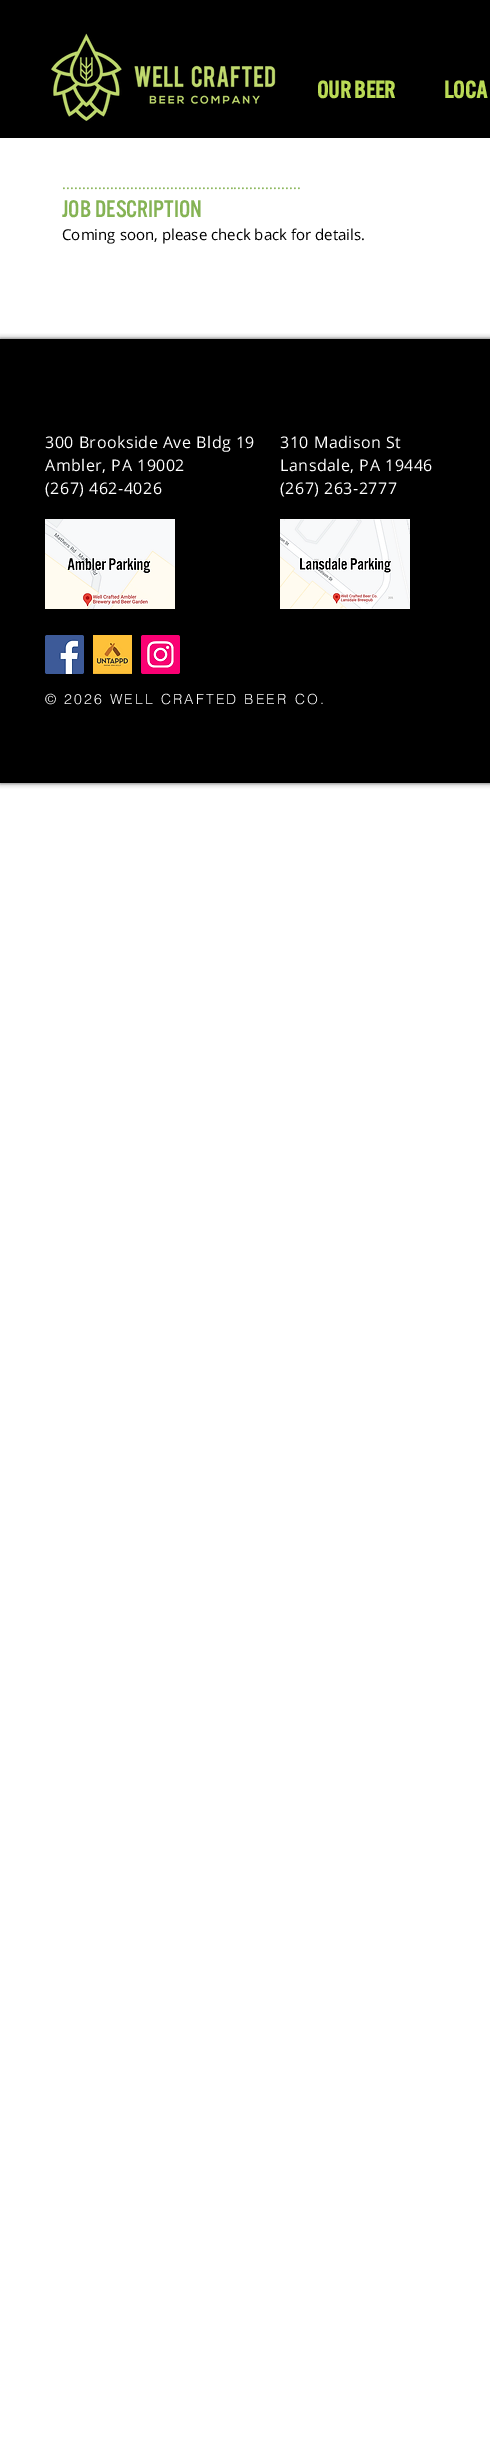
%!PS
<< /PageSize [490 2439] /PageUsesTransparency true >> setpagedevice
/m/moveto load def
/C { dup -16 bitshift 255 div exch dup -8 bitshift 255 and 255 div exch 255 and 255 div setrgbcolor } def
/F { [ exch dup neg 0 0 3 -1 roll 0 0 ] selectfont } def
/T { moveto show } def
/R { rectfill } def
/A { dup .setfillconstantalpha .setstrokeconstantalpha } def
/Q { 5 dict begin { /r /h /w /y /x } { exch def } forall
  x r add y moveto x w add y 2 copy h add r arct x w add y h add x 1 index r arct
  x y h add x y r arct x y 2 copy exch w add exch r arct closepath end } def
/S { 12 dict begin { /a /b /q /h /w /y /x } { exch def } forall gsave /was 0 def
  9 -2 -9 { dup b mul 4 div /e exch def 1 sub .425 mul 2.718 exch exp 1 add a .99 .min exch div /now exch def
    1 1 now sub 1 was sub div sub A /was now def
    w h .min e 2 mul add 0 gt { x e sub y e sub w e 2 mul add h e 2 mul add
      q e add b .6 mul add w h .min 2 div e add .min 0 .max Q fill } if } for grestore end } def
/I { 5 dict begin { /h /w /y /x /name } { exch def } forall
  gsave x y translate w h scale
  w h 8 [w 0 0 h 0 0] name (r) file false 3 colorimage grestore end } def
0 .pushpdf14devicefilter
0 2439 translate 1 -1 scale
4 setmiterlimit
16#FFFFFF C
0 0 490 2439 R
16#000000 C
0 0 490 138 R
(1.rgb) 51 33 225 88 I
/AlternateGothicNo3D-Bold 25 F
16#BADA55 C
(OUR BEER) 317 98 T
(LOCA) 444 98 T
/OpenSans-Regular 15 F
16#85B354 C
(............................................................) 62 189 T
/AlternateGothicNo3D-Medium 25 F
(JOB DESCRIPTION) 62 217 T
/OpenSans-Regular 15 F
16#000000 C
(Coming soon, please check back for details.) 62 240 T
0 339 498 444 0 2.5 .7 S
0 339 490 444 R
/OpenSans-Regular 16 F
16#FFFFFF C
45 448 m .5 0 (300 Brookside Ave Bldg 19) ashow
45 471 m .5 0 (Ambler, PA 19002) ashow
45 494 m .5 0 (\(267\) 462-4026) ashow
280 448 m .5 0 (310 Madison St) ashow
280 471 m .5 0 (Lansdale, PA 19446) ashow
280 494 m .5 0 (\(267\) 263-2777) ashow
(2.rgb) 45 635 39 39 I
(3.rgb) 93 635 39 39 I
(4.rgb) 141 635 39 39 I
(5.rgb) 45 519 130 90 I
(6.rgb) 280 519 130 90 I
/helvetica-Light 14 F
45 704 m 2.1 0 (© 2026 WELL CRAFTED BEER CO.) ashow
.poppdf14devicefilter showpage
